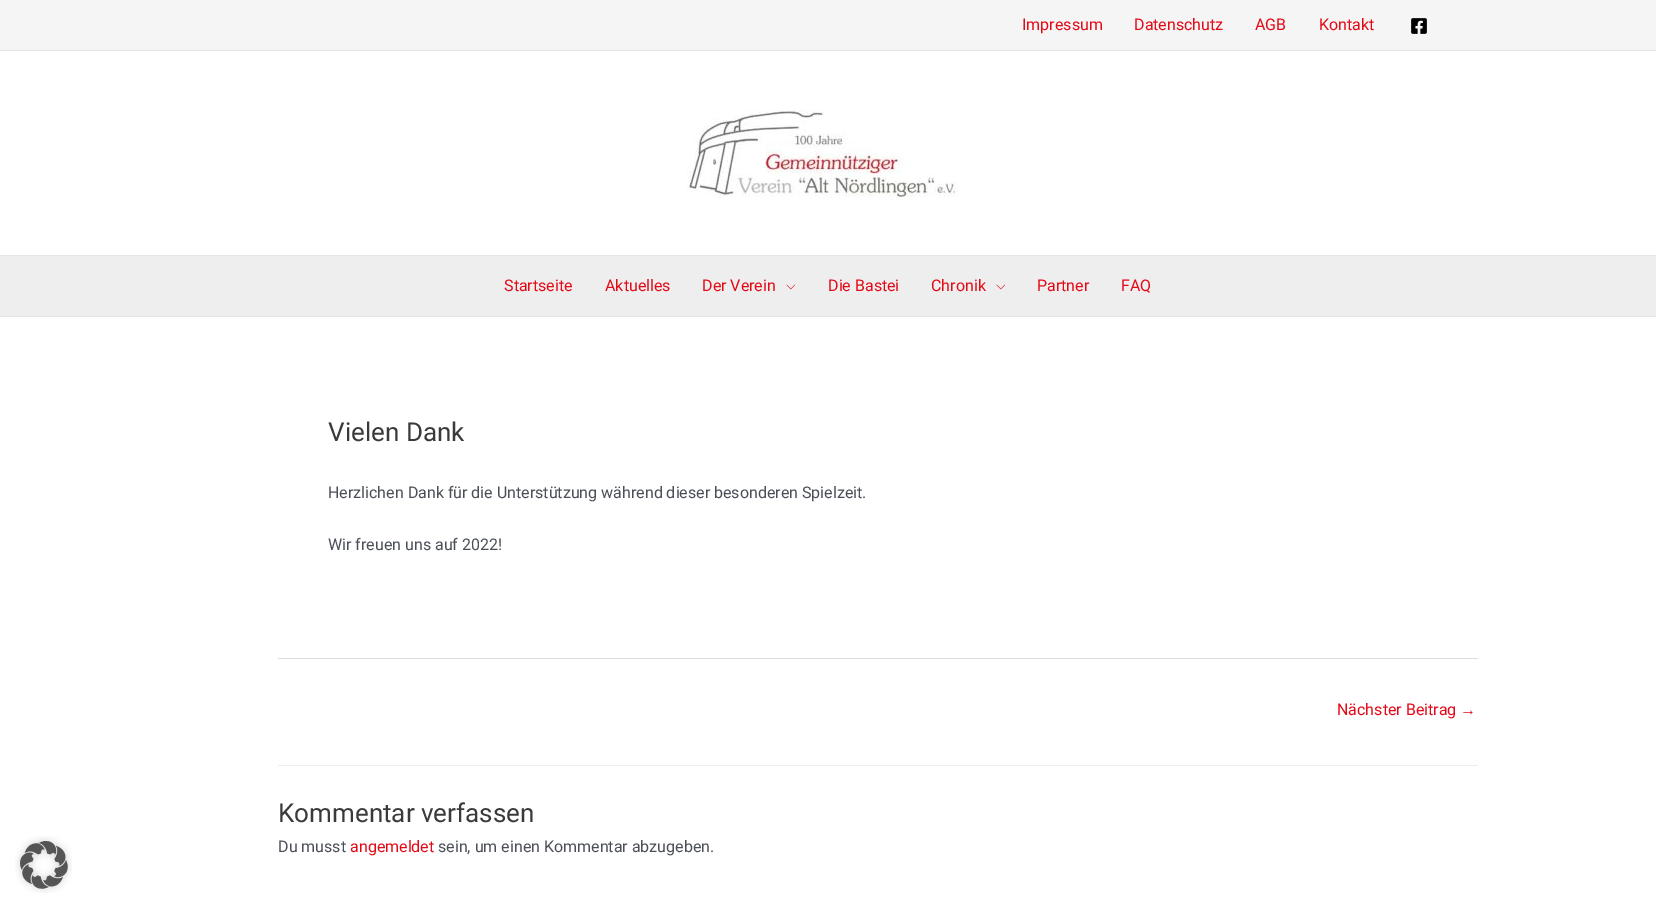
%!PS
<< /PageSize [1656 909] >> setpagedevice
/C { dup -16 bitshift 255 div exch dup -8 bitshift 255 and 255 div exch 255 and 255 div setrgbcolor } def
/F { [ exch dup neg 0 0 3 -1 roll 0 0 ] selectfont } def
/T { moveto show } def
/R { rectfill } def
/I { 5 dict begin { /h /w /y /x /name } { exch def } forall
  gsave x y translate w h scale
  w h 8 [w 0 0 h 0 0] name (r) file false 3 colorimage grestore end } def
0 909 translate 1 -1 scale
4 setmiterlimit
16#FFFFFF C
0 0 1656 909 R
16#F5F5F5 C
0 0 1656 50 R
16#E5E5E5 C
0 50 1656 1 R
/Roboto-Regular 16 F
16#E30A17 C
(Impressum) 1022 30 T
(Datenschutz) 1134 30 T
(AGB) 1255 30 T
(Kontakt) 1319 30 T
(1.rgb) 1411 18 16 16 I
16#E5E5E5 C
0 255 1656 1 R
(2.rgb) 686 109 272 88 I
16#EEEEEE C
0 256 1656 60 R
16#E5E5E5 C
0 316 1656 1 R
16#E30A17 C
(Startseite) 504 291 T
(Aktuelles) 605 291 T
(Der Verein) 702 291 T
(3.rgb) 786 284 9 6 I
(Die Bastei) 828 291 T
(Chronik) 931 291 T
(3.rgb) 996 284 9 6 I
(Partner) 1037 291 T
(FAQ) 1121 291 T
/Roboto-Regular 26 F
16#3A3A3A C
(Vielen Dank) 328 441 T
/Roboto-Regular 16 F
16#4B4F58 C
(Herzlichen Dank für die Unterstützung während dieser besonderen Spielzeit.) 328 498 T
(Wir freuen uns auf 2022!) 328 550 T
16#DDDDDD C
278 658 1200 1 R
16#E30A17 C
(Nächster Beitrag) 1337 715 T
/LiberationSans-Regular 16 F
(→) 1460 715 T
16#EEEEEE C
278 765 1200 1 R
/Roboto-Regular 26 F
16#3A3A3A C
(Kommentar verfassen) 278 822 T
/Roboto-Regular 16 F
16#4B4F58 C
(Du musst) 278 852 T
16#E30A17 C
(angemeldet) 350 852 T
16#4B4F58 C
(sein, um einen Kommentar abzugeben.) 438 852 T
(4.rgb) 15 836 57 57 I
showpage
